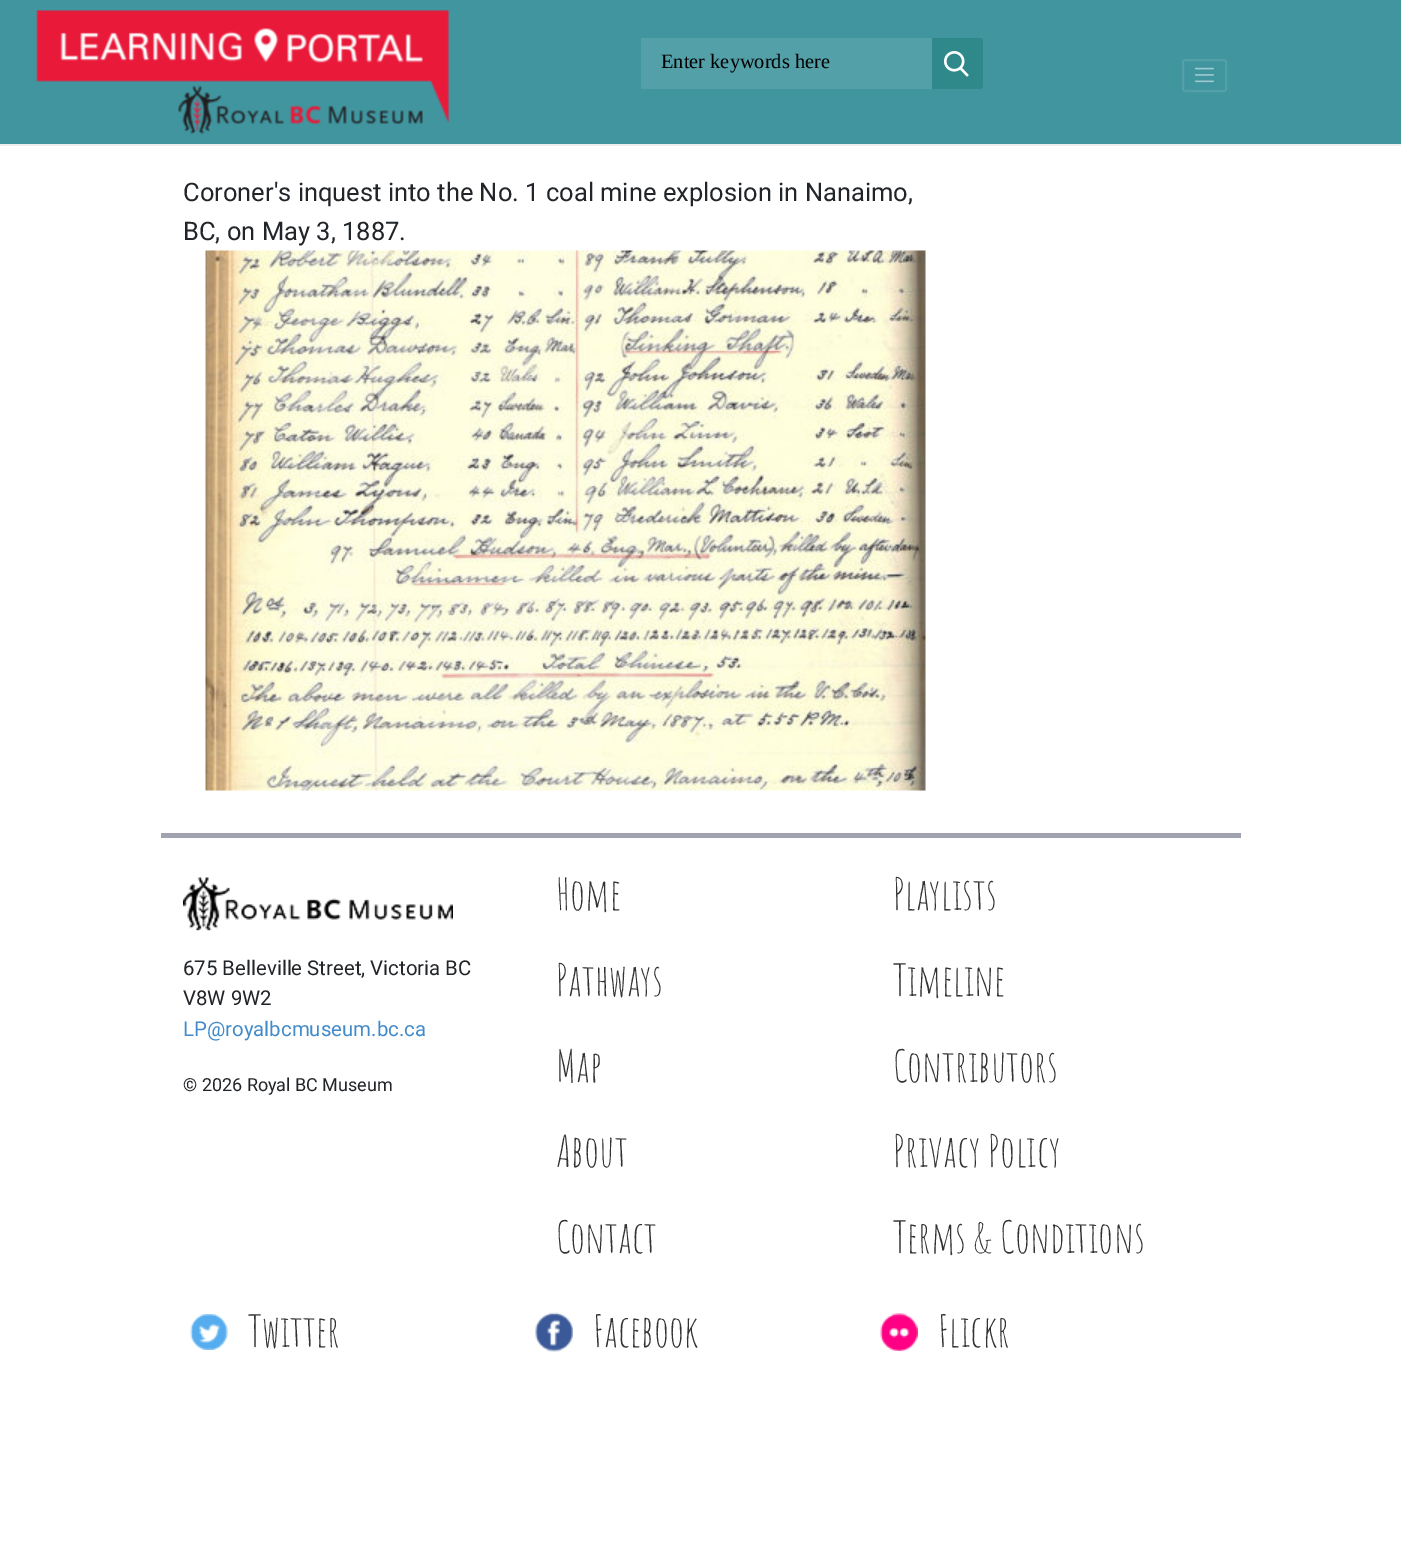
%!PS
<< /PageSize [1401 1550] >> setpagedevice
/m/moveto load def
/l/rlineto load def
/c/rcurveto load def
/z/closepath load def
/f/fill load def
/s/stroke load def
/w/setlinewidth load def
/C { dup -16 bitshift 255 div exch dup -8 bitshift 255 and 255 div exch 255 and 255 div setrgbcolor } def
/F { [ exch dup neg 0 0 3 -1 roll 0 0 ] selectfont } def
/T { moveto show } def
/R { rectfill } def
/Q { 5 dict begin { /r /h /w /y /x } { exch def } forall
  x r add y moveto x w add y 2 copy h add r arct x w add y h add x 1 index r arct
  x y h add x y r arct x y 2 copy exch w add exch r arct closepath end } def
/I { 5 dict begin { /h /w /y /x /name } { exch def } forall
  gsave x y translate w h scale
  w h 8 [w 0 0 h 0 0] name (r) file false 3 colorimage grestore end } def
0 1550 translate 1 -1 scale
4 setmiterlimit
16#FFFFFF C
0 0 1401 1550 R
16#40959F C
0 0 1401 144 R
16#EEEEEE C
0 144 1401 2 R
(1.rgb) 36 10 414 125 I
16#53A0A9 C
641 38 291 51 R
/LiberationSerif-Regular 20.4 F
16#000000 C
(Enter keywords here) 661 68 T
16#2F898A C
932 38 m 48 0 l 1.5 0 3 1.5 3 3 c 0 45 l 0 1.5 -1.5 3 -3 3 c -48 0 l z f
(2.rgb) 944 51 25 26 I
16#53A0A9 C
2 w
1183 60 43 31 2 Q s
(3.rgb) 1194 67 20 16 I
/Roboto-Regular 25.5 F
16#212529 C
(Coroner's inquest into the No. 1 coal mine explosion in Nanaimo,) 183 201 T
(BC, on May 3, 1887.) 183 240 T
(4.rgb) 205 250 721 541 I
16#A0A3AF C
161 833 1080 5 R
(5.rgb) 183 877 270 54 I
/Roboto-Regular 20.4 F
16#212529 C
(675 Belleville Street, Victoria BC) 183 975 T
(V8W 9W2) 183 1005 T
16#428BCA C
(LP@royalbcmuseum.bc.ca) 183 1036 T
/Roboto-Regular 18 F
16#212529 C
(© 2026 Royal BC Museum) 183 1091 T
/AmaticSC-Regular 43.5 F
16#333333 C
(Home) 556 910 T
(Playlists) 893 910 T
(Pathways) 556 996 T
(Timeline) 893 996 T
(Map) 556 1082 T
(Contributors) 893 1082 T
(About) 556 1167 T
(Privacy Policy) 893 1167 T
(Contact) 556 1253 T
(Terms & Conditions) 893 1253 T
(6.rgb) 190 1314 38 36 I
(Twitter) 248 1347 T
(7.rgb) 535 1312 38 40 I
(Facebook) 593 1347 T
(8.rgb) 880 1313 38 38 I
(Flickr) 938 1347 T
showpage
